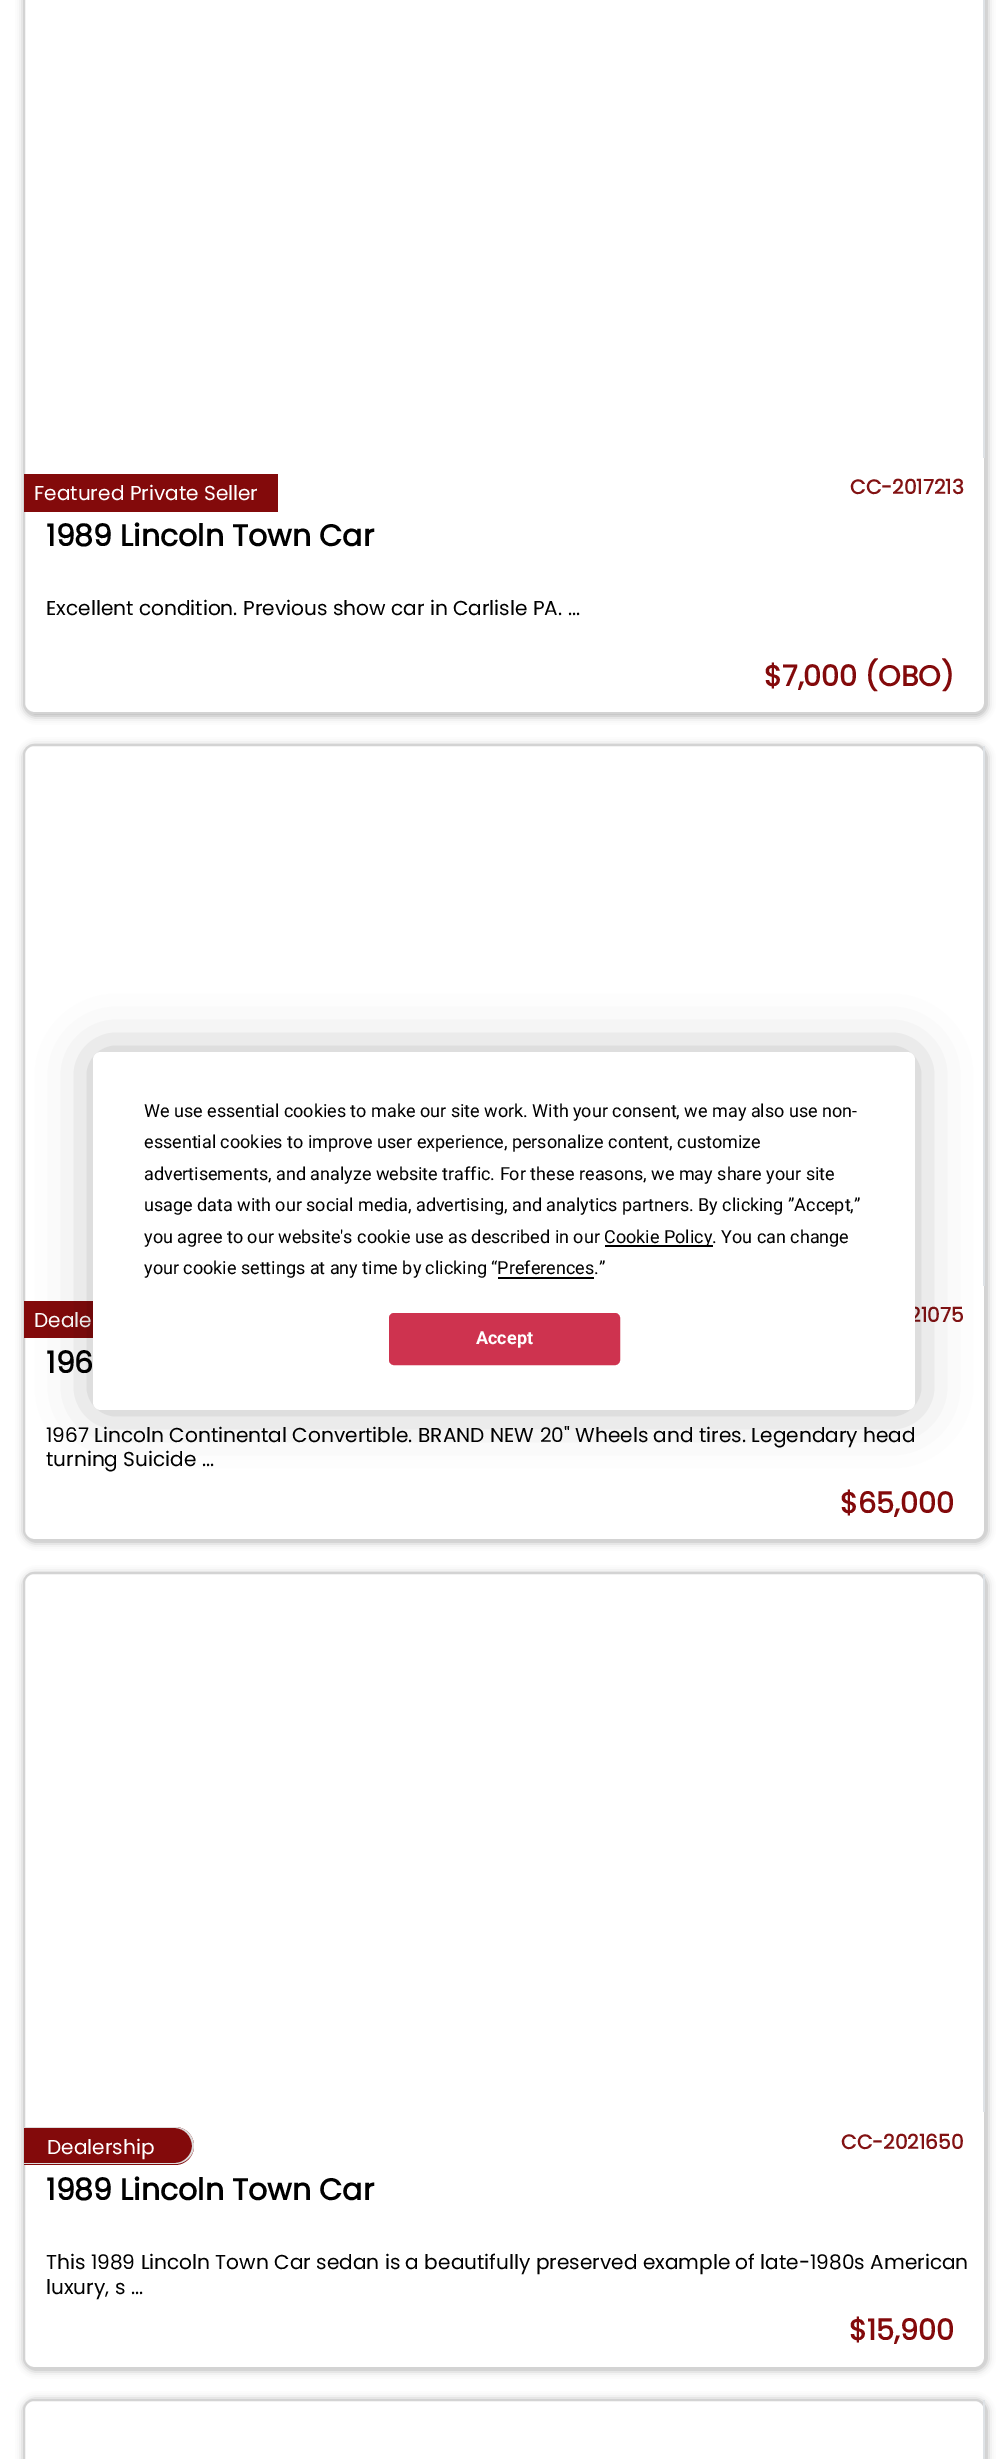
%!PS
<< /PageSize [1008 2459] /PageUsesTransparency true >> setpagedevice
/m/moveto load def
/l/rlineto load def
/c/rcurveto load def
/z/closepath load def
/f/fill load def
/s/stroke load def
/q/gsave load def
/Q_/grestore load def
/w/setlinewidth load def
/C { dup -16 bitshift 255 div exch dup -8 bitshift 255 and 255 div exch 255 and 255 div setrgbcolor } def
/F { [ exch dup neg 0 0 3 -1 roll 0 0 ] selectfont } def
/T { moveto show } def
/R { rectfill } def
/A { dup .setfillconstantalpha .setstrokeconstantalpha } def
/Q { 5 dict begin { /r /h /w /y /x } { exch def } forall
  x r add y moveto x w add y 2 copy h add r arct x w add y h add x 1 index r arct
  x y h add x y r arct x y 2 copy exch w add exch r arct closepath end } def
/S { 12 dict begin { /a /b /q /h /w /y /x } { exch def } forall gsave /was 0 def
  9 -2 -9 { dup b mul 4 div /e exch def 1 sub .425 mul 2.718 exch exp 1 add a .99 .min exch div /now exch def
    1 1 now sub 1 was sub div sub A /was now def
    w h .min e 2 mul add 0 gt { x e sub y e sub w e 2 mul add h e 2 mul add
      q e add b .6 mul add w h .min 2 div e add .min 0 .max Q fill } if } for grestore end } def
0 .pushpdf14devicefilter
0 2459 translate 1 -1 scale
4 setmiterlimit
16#FFFFFF C
0 0 1008 2459 R
q
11 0 m 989 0 l 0 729 l -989 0 l z 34 -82 m 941 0 l 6 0 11 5 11 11 c 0 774 l 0 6 -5 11 -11 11 c -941 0 l -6 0 -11 -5 -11 -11 c 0 -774 l 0 -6 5 -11 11 -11 c z eoclip newpath
16#A9A9A9 C
24 -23 963 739 11 4 1 S
Q_
16#D3D3D3 C
2 w
24 -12 961 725 10 Q s
16#DEE2E6 C
983 0 2 458 R
16#830A0B C
24 474 254 38 R
/Poppins-Regular 20.15 F
16#FFFFFF C
(Featured Private Seller) 34 500 T
/Poppins-Bold 20.15 F
16#821213 C
(CC-2017213) 850 494 T
/Poppins-Bold 30 F
16#000000 C
(1989 Lincoln Town Car) 46 546 T
/Poppins-Regular 20.15 F
(Excellent condition. Previous show car in Carlisle PA. ...) 46 615 T
/Poppins-Bold 28.75 F
16#830A0B C
($7,000 \(OBO\)) 764 686 T
q
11 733 m 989 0 l 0 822 l -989 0 l z 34 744 m 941 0 l 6 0 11 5 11 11 c 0 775 l 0 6 -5 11 -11 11 c -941 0 l -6 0 -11 -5 -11 -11 c 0 -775 l 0 -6 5 -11 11 -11 c z eoclip newpath
16#A9A9A9 C
24 746 963 796 11 4 1 S
Q_
16#D3D3D3 C
24 745 961 795 10 Q s
16#DEE2E6 C
983 746 2 540 R
16#830A0B C
24 1301 69 37 R
/Poppins-Regular 20.15 F
16#FFFFFF C
(Deale) 34 1327 T
/Poppins-Bold 20.15 F
16#821213 C
(21075) 909 1322 T
/Poppins-Bold 30 F
16#000000 C
(196) 46 1373 T
/Poppins-Regular 20.15 F
(1967 Lincoln Continental Convertible. BRAND NEW 20" Wheels and tires. Legendary head) 46 1442 T
(turning Suicide ...) 46 1466 T
/Poppins-Bold 28.75 F
16#830A0B C
($65,000) 840 1513 T
q
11 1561 m 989 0 l 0 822 l -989 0 l z 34 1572 m 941 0 l 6 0 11 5 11 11 c 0 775 l 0 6 -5 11 -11 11 c -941 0 l -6 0 -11 -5 -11 -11 c 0 -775 l 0 -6 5 -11 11 -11 c z eoclip newpath
16#A9A9A9 C
24 1574 963 796 11 4 1 S
Q_
16#D3D3D3 C
24 1573 961 795 10 Q s
16#DEE2E6 C
983 1574 2 538 R
16#830A0B C
24 2127 m 151 0 l 10.5 0 19 8.5 19 19 c 0 10.5 -8.5 19 -19 19 c -151 0 l z f
16#DDDDDD C
24 2127 m 151 0 l 10 0 19 8 19 19 c 0 10 -9 18 -19 18 c -151 0 l z 24 2128 m 151 0 l 9 0 17 8 17 18 c 0 9 -8 17 -17 17 c -151 0 l z eofill
/Poppins-Regular 20.15 F
16#FFFFFF C
(Dealership) 47 2154 T
/Poppins-Bold 20.15 F
16#821213 C
(CC-2021650) 841 2149 T
/Poppins-Bold 30 F
16#000000 C
(1989 Lincoln Town Car) 46 2200 T
/Poppins-Regular 20.15 F
(This 1989 Lincoln Town Car sedan is a beautifully preserved example of late-1980s American) 46 2269 T
(luxury, s ...) 46 2294 T
/Poppins-Bold 28.75 F
16#830A0B C
($15,900) 849 2340 T
q
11 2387 m 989 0 l 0 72 l -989 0 l z 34 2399 m 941 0 l 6 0 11 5 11 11 c 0 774 l 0 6 -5 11 -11 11 c -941 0 l -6 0 -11 -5 -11 -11 c 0 -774 l 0 -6 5 -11 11 -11 c z eoclip newpath
16#A9A9A9 C
24 2400 963 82 11 4 1 S
Q_
16#D3D3D3 C
24 2400 961 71 10 Q s
16#DEE2E6 C
983 2400 2 59 R
16#000000 C
93 1052 822 358 8 26 .25 S
16#FFFFFF C
93 1052 822 358 8 Q f
/Roboto-Regular 18 F
16#000000 C
(We use essential cookies to make our site work. With your consent, we may also use non-) 144 1117 T
(essential cookies to improve user experience, personalize content, customize) 144 1148 T
(advertisements, and analyze website traffic. For these reasons, we may share your site) 144 1180 T
(usage data with our social media, advertising, and analytics partners. By clicking ”Accept,”) 144 1211 T
(you agree to our website's cookie use as described in our) 144 1243 T
605 1245 108 2 R
(Cookie Policy) 604 1243 T
(. You can change) 712 1243 T
(your cookie settings at any time by clicking “Preferences) 144 1274 T
(.”) 594 1274 T
498 1277 96 2 R
16#CE334F C
390 1314 229 50 4 Q q f Q_
s
/Roboto-Bold 18 F
16#FFFFFF C
(Accept) 476 1344 T
.poppdf14devicefilter showpage
